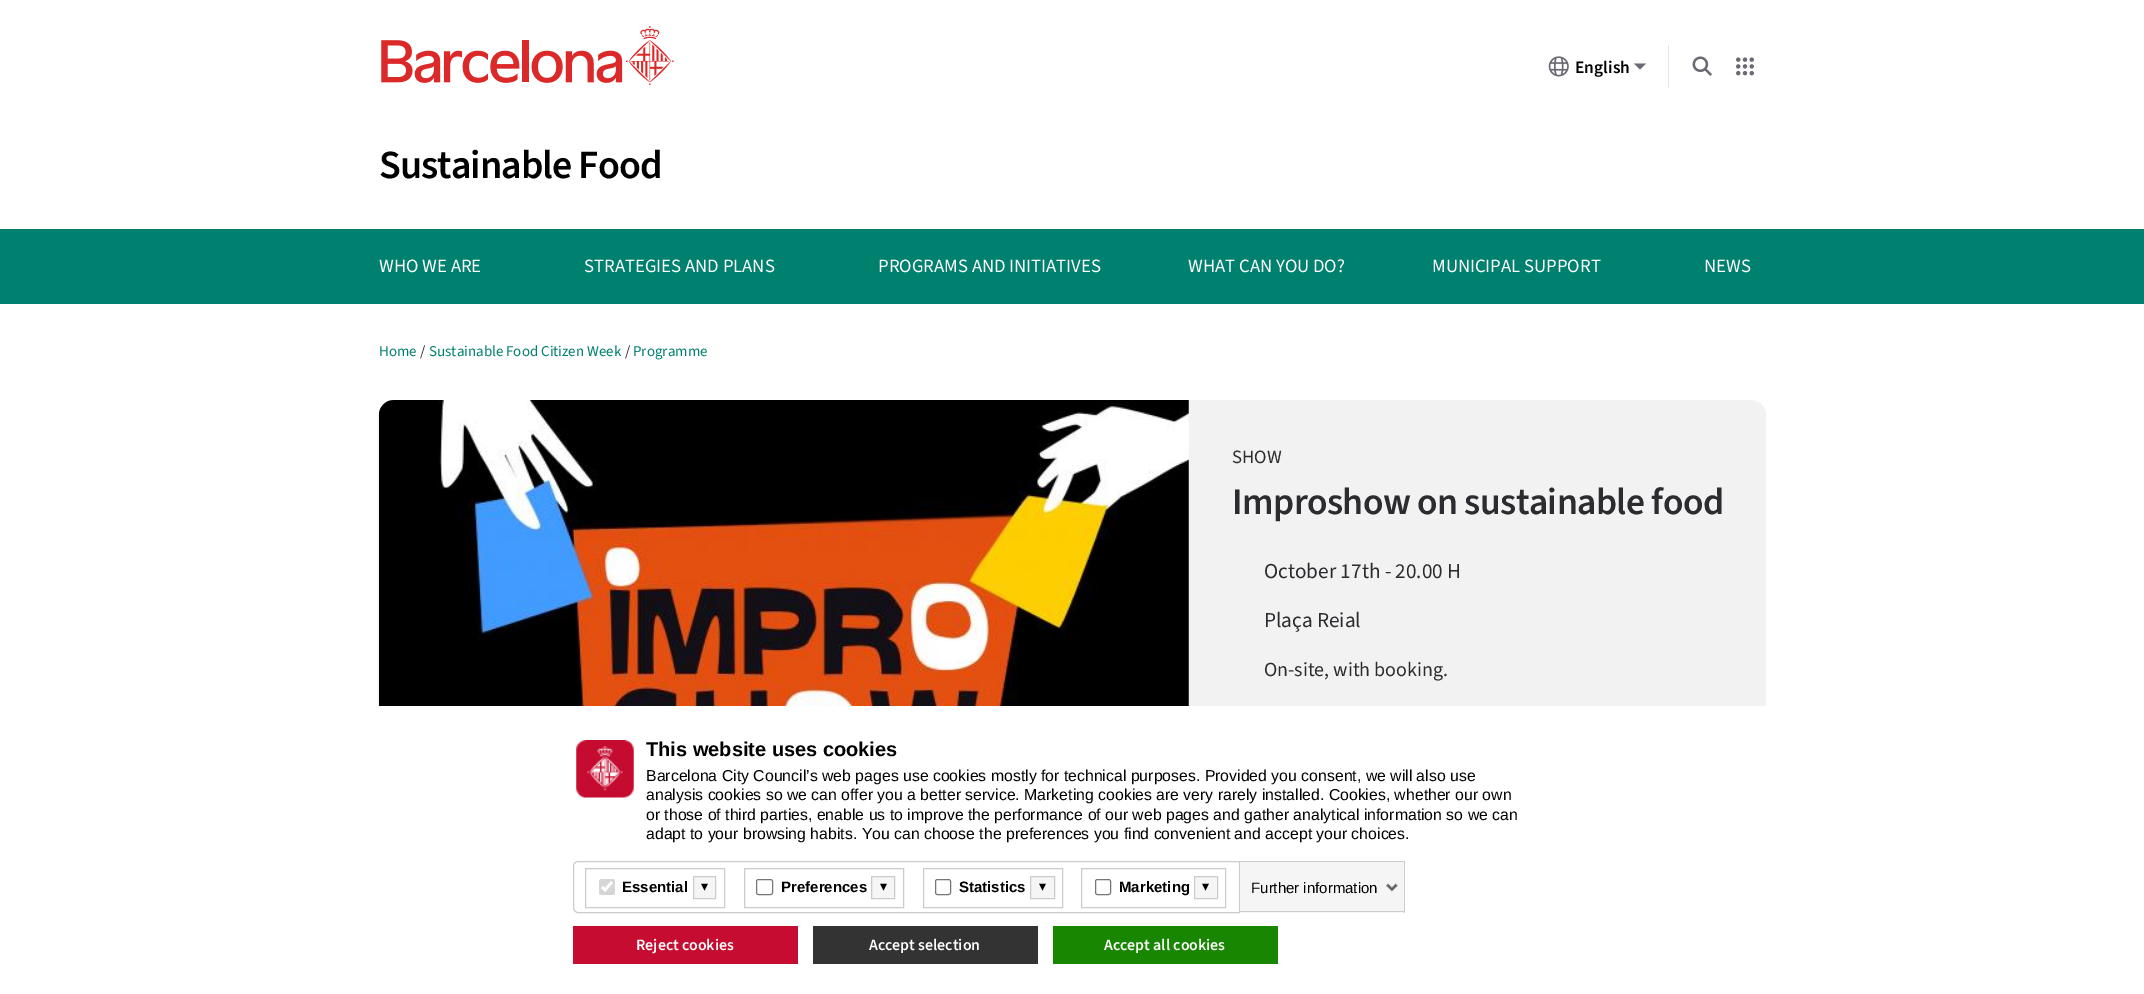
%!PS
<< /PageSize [2144 994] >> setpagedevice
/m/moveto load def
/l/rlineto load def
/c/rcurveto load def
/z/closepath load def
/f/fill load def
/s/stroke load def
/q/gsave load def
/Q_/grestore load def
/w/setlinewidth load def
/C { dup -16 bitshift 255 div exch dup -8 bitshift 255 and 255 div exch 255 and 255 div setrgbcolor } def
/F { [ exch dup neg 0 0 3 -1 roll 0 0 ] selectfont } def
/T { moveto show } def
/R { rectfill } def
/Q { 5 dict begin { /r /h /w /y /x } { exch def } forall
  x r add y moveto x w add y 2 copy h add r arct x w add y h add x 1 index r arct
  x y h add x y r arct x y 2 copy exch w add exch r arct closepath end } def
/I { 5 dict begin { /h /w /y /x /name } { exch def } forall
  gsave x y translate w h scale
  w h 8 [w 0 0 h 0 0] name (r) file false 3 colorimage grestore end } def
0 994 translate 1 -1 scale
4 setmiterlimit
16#FFFFFF C
0 0 2144 994 R
(1.rgb) 381 26 293 59 I
16#E5E5E5 C
1668 45 1 43 R
(2.rgb) 1548 56 21 21 I
/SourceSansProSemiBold-SemiBold 17.5 F
16#000000 C
(English) 1575 73 T
16#696973 C
1634 63.5 m 6 6 l 6 -6 l z f
(3.rgb) 1692 56 20 20 I
(4.rgb) 1736 57 18 19 I
/SourceSans3-SemiBold 40 F
16#000000 C
379 178 m -1 0 (Sustainable Food) ashow
16#00806E C
0 229 2144 75 R
/SourceSans3-Regular 18.75 F
16#FFFFFF C
(WHO WE ARE) 379 272 T
(STRATEGIES AND PLANS) 584 272 T
(PROGRAMS AND INITIATIVES) 878 272 T
(WHAT CAN YOU DO?) 1188 272 T
(MUNICIPAL SUPPORT) 1432 272 T
(NEWS) 1704 272 T
/SourceSans3-Regular 15 F
16#00806E C
(Home) 379 356 T
16#2C2C30 C
(/) 420 356 T
16#00806E C
(Sustainable Food Citizen Week) 429 356 T
16#2C2C30 C
(/) 625 356 T
16#00806E C
(Programme) 633 356 T
16#F2F2F2 C
379 400 1387 563 15 Q f
(5.rgb) 378 400 811 306 I
/SourceSans3-Regular 18.75 F
16#2C2C30 C
(SHOW) 1232 463 T
/SourceSans3-SemiBold 37.5 F
1232 514 m -.6 0 (Improshow on sustainable food) ashow
/SourceSans3-Regular 21.25 F
(October 17th - 20.00 H) 1264 578 T
(Plaça Reial) 1264 627 T
/SourceSans3-Regular 20 F
(On-site, with booking.) 1264 676 T
16#FFFFFF C
379 706 1387 257 R
(6.rgb) 576 740 58 58 I
/LiberationSans-Bold 20 F
16#000000 C
(This website uses cookies) 646 756 T
/LiberationSans-Regular 15.83 F
(Barcelona City Council’s web pages use cookies mostly for technical purposes. Provided you consent, we will also use) 646 781 T
(analysis cookies so we can offer you a better service. Marketing cookies are very rarely installed. Cookies, whether our own) 646 800 T
(or those of third parties, enable us to improve the performance of our web pages and gather analytical information so we can) 646 820 T
(adapt to your browsing habits. You can choose the preferences you find convenient and accept your choices.) 646 839 T
16#CCCCCC C
578 861.5 m 661.5 0 l 0 51 l -661.5 0 l -2.5 0 -4.5 -2 -4.5 -4.5 c 0 -42 l 0 -2.5 2 -4.5 4.5 -4.5 c z s
585.5 868.5 139 39 rectstroke
16#D6D6D6 C
599 879 16 16 2.5 Q f
16#FFFFFF C
2.6 w
602 887 m 3 3 l 7 -8 l s
/LiberationSans-Bold 15 F
16#000000 C
(Essential) 622 892 T
16#F5F5F5 C
693.5 876.5 m 22 0 l 0 22 l -22 0 l z q f Q_
16#CCCCCC C
1 w
s
/DejaVuSans-Regular 14 F
16#000000 C
(▾) 701 891 T
16#CCCCCC C
744.5 868.5 159 39 rectstroke
16#767676 C
756.5 879.5 16 15 2 Q s
/LiberationSans-Bold 15 F
16#000000 C
(Preferences) 781 892 T
16#F5F5F5 C
871.5 876.5 m 23 0 l 0 22 l -23 0 l z q f Q_
16#CCCCCC C
s
/DejaVuSans-Regular 14 F
16#000000 C
(▾) 880 891 T
16#CCCCCC C
923.5 868.5 139 39 rectstroke
16#767676 C
935.5 879.5 15 15 2 Q s
/LiberationSans-Bold 15 F
16#000000 C
(Statistics) 959 892 T
16#F5F5F5 C
1030.5 876.5 m 24 0 l 0 22 l -24 0 l z q f Q_
16#CCCCCC C
s
/DejaVuSans-Regular 14 F
16#000000 C
(▾) 1039 891 T
16#CCCCCC C
1081.5 868.5 144 39 rectstroke
16#767676 C
1095.5 879.5 15 15 2 Q s
/LiberationSans-Bold 15 F
16#000000 C
(Marketing) 1119 892 T
16#F5F5F5 C
1194.5 876.5 m 23 0 l 0 22 l -23 0 l z q f Q_
16#CCCCCC C
s
/DejaVuSans-Regular 14 F
16#000000 C
(▾) 1202 891 T
16#F5F5F5 C
1240 862 164 51 R
16#CCCCCC C
1240 861 165 1 R
1404 861 1 52 R
1240 911 165 1 R
(7.rgb) 1386 883 12 9 I
/LiberationSans-Regular 15 F
16#000000 C
(Further information) 1251 893 T
16#C60C30 C
573 926 225 38 R
/SourceSans3-SemiBold 15.83 F
16#FFFFFF C
(Reject cookies) 636 950 T
16#333333 C
813 926 225 38 R
16#FFFFFF C
(Accept selection) 869 950 T
16#188600 C
1053 926 225 38 R
16#FFFFFF C
(Accept all cookies) 1104 950 T
showpage
